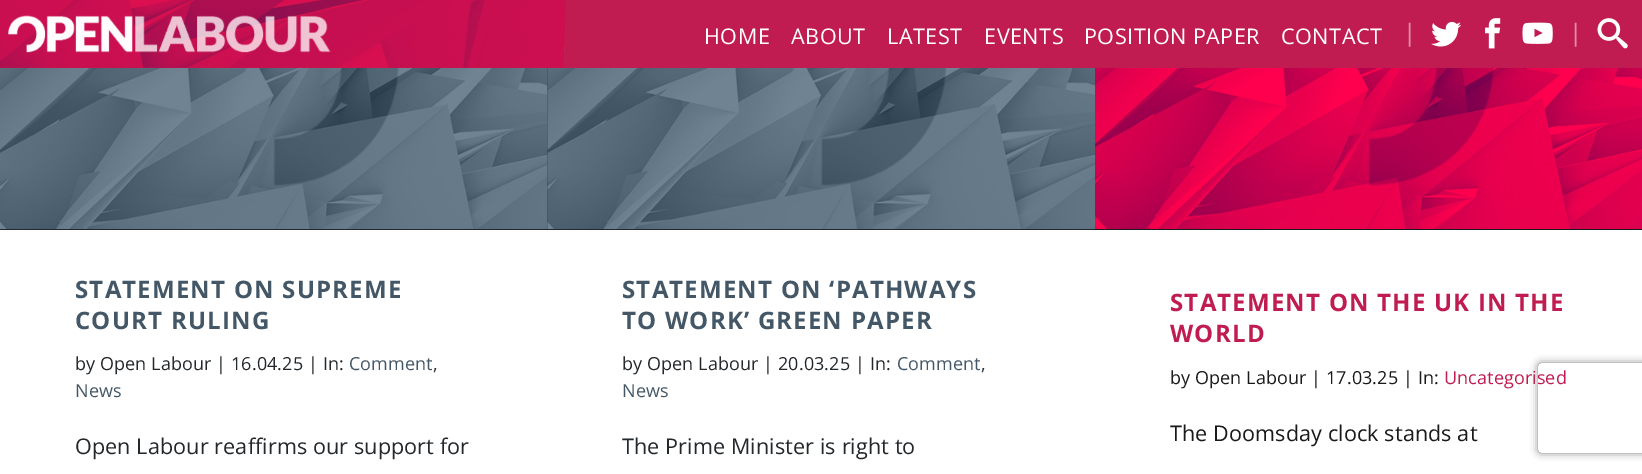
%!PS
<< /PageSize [1642 474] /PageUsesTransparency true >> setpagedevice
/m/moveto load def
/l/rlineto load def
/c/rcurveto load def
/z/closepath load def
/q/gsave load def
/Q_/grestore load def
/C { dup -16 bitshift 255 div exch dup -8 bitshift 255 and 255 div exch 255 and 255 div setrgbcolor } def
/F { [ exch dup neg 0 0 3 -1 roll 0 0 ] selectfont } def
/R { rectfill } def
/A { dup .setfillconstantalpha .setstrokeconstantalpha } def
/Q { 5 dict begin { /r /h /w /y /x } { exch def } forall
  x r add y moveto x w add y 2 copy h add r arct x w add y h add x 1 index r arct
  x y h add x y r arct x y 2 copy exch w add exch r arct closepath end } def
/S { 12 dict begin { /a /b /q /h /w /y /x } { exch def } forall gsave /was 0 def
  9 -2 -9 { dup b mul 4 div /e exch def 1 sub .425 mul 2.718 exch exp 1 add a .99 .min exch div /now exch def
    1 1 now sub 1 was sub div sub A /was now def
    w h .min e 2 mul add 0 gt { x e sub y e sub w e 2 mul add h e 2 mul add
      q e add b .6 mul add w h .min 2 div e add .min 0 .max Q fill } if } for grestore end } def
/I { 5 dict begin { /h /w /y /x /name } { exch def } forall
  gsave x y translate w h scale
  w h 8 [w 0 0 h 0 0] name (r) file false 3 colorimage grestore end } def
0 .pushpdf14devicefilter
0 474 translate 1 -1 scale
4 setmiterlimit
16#FFFFFF C
0 0 1642 474 R
16#C01C51 C
0 0 1642 68 R
(1.rgb) 0 0 567 68 I
(2.rgb) 8 15 323 38 I
/OpenSans-Regular 21.6 F
16#FFFFFF C
704 44 m .5 0 (HOME) ashow
791 44 m .5 0 (ABOUT) ashow
887 44 m .5 0 (LATEST) ashow
984 44 m .5 0 (EVENTS) ashow
1084 44 m .5 0 (POSITION PAPER) ashow
1281 44 m .5 0 (CONTACT) ashow
/OpenSans-Regular 24 F
16#E08EA8 C
1403 41 m .1 0 (|) ashow
(3.rgb) 1431 21 30 26 I
(4.rgb) 1485 18 16 31 I
(5.rgb) 1522 22 31 22 I
1569 41 m .1 0 (|) ashow
(6.rgb) 1597 18 31 31 I
16#23282C C
0 68 548 162 R
(7.rgb) 0 68 548 161 I
/OpenSans-Bold 24 F
16#445766 C
75 298 m 1.2 0 (STATEMENT ON SUPREME) ashow
75 329 m 1.2 0 (COURT RULING) ashow
/OpenSans-Regular 18 F
16#23282C C
75 370 m .1 0 (by Open Labour | 16.04.25 | In:) ashow
16#445766 C
349 370 m .1 0 (Comment) ashow
16#23282C C
433 370 m .1 0 (,) ashow
16#445766 C
75 397 m .1 0 (News) ashow
/OpenSans-Regular 21.6 F
16#23282C C
75 454 m .1 0 (Open Labour reaffirms our support for) ashow
548 229 547 1 R
(8.rgb) 547 68 548 161 I
/OpenSans-Bold 24 F
16#445766 C
622 298 m 1.2 0 (STATEMENT ON ‘PATHWAYS) ashow
622 329 m 1.2 0 (TO WORK’ GREEN PAPER) ashow
/OpenSans-Regular 18 F
16#23282C C
622 370 m .1 0 (by Open Labour | 20.03.25 | In:) ashow
16#445766 C
897 370 m .1 0 (Comment) ashow
16#23282C C
981 370 m .1 0 (,) ashow
16#445766 C
622 397 m .1 0 (News) ashow
/OpenSans-Regular 21.6 F
16#23282C C
622 454 m .1 0 (The Prime Minister is right to) ashow
16#1A1A1A C
1095 229 547 1 R
(9.rgb) 1095 68 547 161 I
/OpenSans-Bold 24 F
16#C01C51 C
1170 311 m 1.2 0 (STATEMENT ON THE UK IN THE) ashow
1170 342 m 1.2 0 (WORLD) ashow
/OpenSans-Regular 18 F
16#1A1A1A C
1170 384 m .1 0 (by Open Labour | 17.03.25 | In:) ashow
16#C01C51 C
1444 384 m .1 0 (Uncategorised) ashow
/OpenSans-Regular 21.6 F
16#1A1A1A C
1170 441 m .1 0 (The Doomsday clock stands at) ashow
q
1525 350 m 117 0 l 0 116 l -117 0 l z 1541 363 m 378 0 l 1.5 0 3 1.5 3 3 c 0 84 l 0 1.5 -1.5 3 -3 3 c -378 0 l -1.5 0 -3 -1.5 -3 -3 c 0 -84 l 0 -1.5 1.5 -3 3 -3 c z eoclip newpath
16#808080 C
1538 363 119 90 3 4 1 S
Q_
.poppdf14devicefilter showpage
